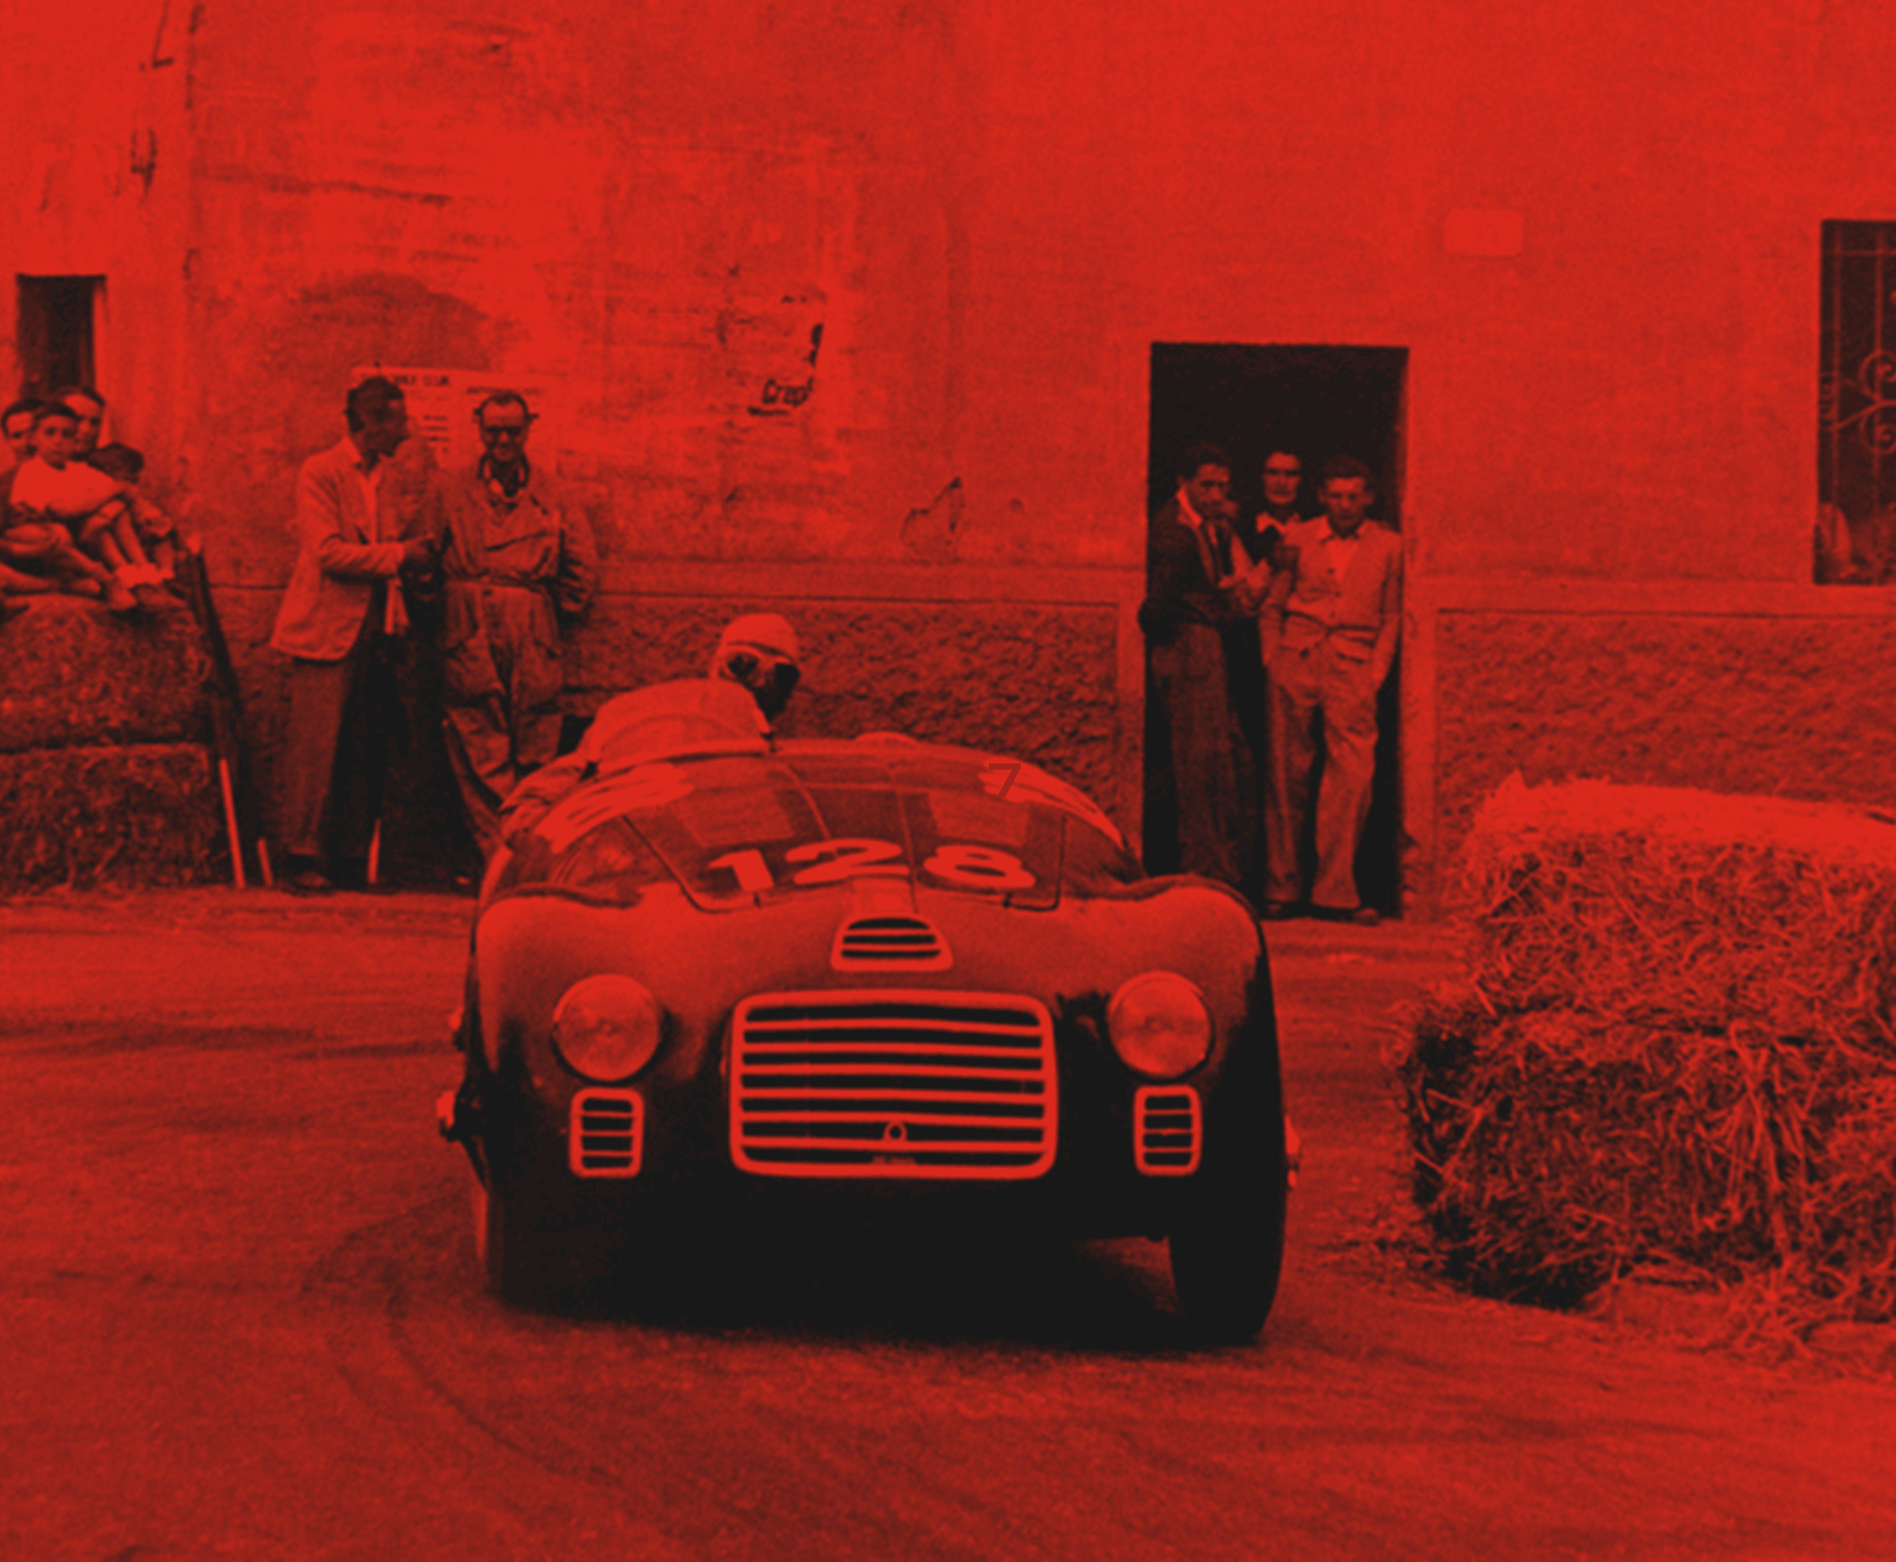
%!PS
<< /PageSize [1896 1562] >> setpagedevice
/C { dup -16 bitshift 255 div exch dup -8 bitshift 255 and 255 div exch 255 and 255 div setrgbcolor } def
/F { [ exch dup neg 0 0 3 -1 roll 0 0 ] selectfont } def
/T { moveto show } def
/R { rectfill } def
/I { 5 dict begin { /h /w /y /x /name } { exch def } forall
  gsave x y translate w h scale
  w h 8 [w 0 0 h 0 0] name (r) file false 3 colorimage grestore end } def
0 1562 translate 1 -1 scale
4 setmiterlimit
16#FFFFFF C
0 0 1896 1562 R
(1.rgb) 0 0 1896 1562 I
/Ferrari-Medium 48 F
16#9E231A C
(7) 988 798 T
showpage
